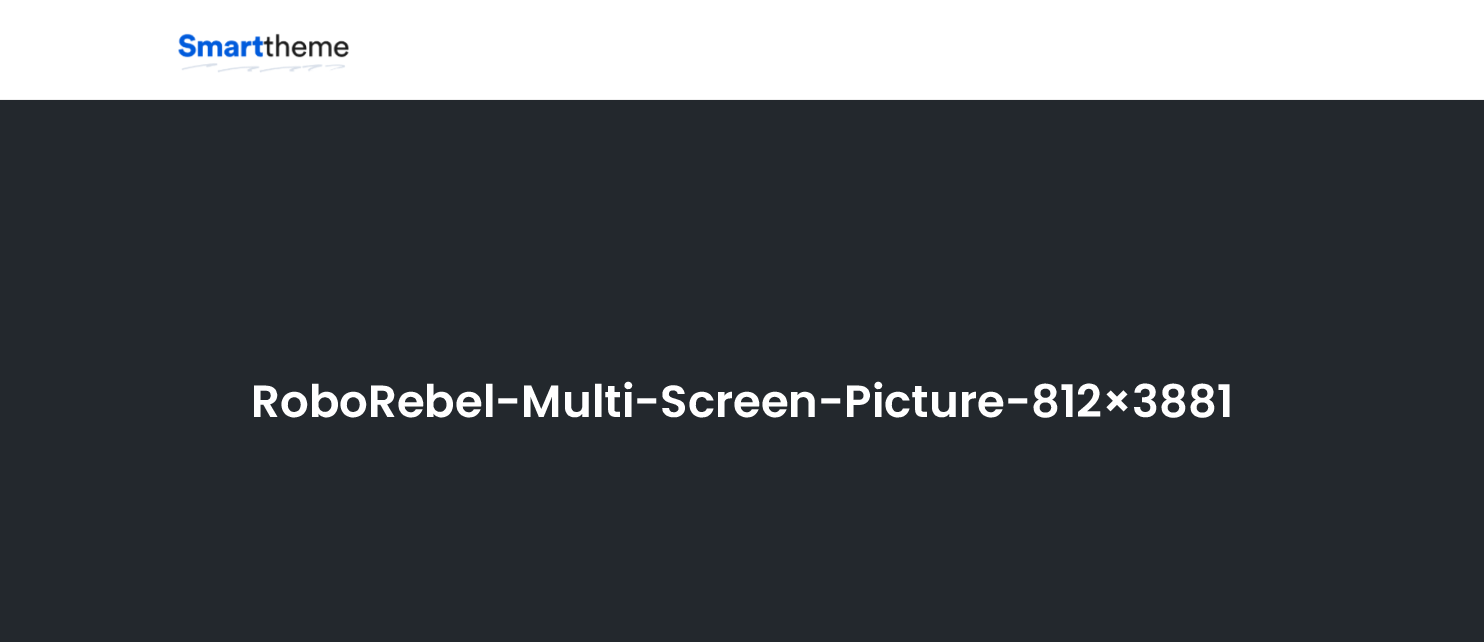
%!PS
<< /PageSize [1484 642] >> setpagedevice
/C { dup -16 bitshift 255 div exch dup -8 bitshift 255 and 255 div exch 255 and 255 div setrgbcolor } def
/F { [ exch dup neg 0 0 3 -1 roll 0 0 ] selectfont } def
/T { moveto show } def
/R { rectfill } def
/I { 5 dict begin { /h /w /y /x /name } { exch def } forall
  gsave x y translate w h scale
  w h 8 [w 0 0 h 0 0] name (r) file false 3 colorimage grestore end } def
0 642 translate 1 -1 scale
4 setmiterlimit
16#FFFFFF C
0 0 1484 642 R
16#F0F0F0 C
0 99 1484 1 R
(1.rgb) 178 33 171 40 I
16#23282D C
0 100 1484 542 R
/Poppins-SemiBold 45 F
16#FFFFFF C
(RoboRebel-Multi-Screen-Picture-812×3881) 251 417 T
showpage
